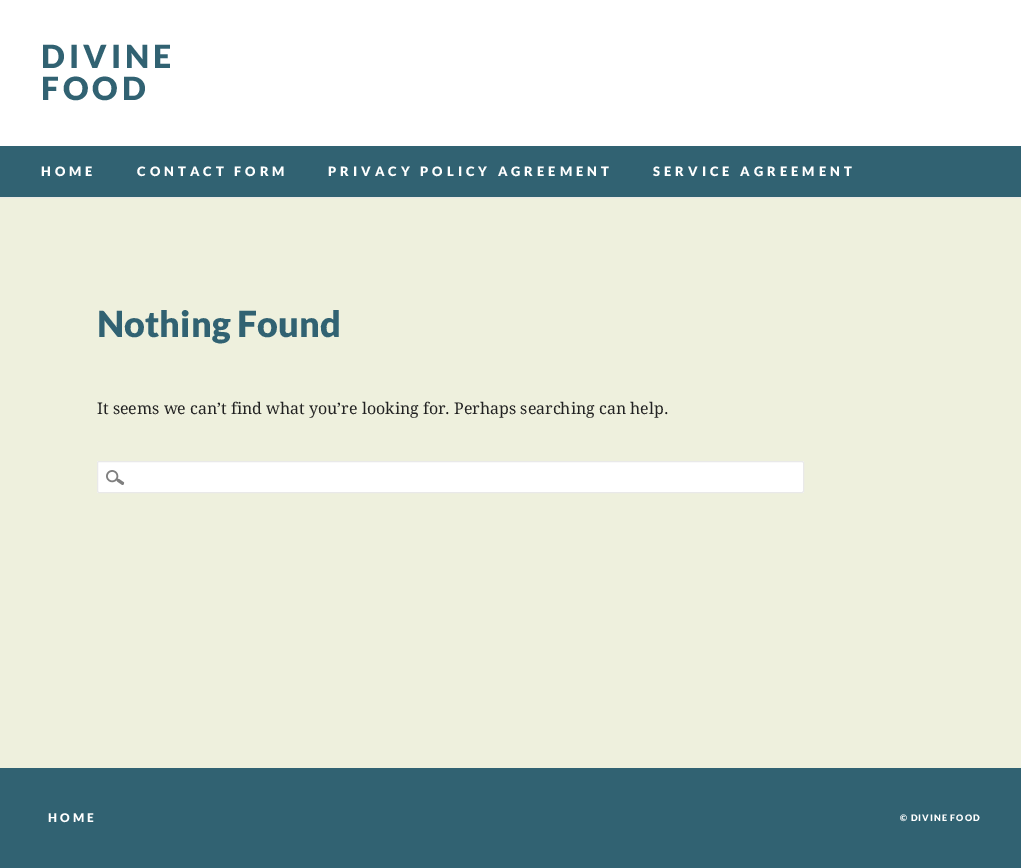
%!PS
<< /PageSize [1021 868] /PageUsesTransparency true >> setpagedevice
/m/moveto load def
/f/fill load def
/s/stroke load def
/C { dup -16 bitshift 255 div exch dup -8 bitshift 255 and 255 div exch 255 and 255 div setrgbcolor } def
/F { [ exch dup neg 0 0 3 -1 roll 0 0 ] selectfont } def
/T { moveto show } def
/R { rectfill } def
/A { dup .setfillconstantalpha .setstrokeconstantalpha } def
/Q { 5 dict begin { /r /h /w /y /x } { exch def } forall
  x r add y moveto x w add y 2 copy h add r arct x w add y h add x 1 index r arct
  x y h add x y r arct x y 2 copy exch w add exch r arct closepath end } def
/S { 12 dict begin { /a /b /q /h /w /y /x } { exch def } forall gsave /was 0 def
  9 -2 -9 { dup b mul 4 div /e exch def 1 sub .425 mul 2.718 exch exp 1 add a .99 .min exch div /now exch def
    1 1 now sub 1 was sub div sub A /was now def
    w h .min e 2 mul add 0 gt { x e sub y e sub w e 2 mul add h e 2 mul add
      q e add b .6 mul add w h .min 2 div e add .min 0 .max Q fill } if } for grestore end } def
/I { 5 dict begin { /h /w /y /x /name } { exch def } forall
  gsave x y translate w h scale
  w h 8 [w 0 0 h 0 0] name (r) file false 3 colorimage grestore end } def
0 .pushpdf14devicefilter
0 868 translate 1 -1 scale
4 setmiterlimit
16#EEF0DD C
0 0 1021 868 R
16#E7E7E7 C
0 1 1021 197 0 1 1 S
16#FFFFFF C
0 0 1021 146 R
/Lato-Black 32 F
16#316272 C
41 68 m 4 0 (DIVINE) ashow
41 100 m 4 0 (FOOD) ashow
0 146 1021 51 R
/Lato-Black 13 F
16#FFFFFF C
41 176 m 4 0 (HOME) ashow
137 176 m 4 0 (CONTACT FORM) ashow
328 176 m 4 0 (PRIVACY POLICY AGREEMENT) ashow
653 176 m 4 0 (SERVICE AGREEMENT) ashow
/Lato-Black 36 F
16#316272 C
(Nothing Found) 97 337 T
/DroidSerif-Regular 16 F
16#222222 C
(It seems we can’t find what you’re looking for. Perhaps searching can help.) 97 414 T
16#FFFFFF C
97 461 707 32 2 Q f
(1.rgb) 106 470 19 15 I
16#E9E9E9 C
97.5 461.5 706 31 1.5 Q s
16#316272 C
0 768 1021 100 R
/Lato-Black 12 F
16#FFFFFF C
48 822 m 3 0 (HOME) ashow
/Lato-Black 9 F
900 821 m 1 0 (© DIVINE FOOD) ashow
.poppdf14devicefilter showpage
